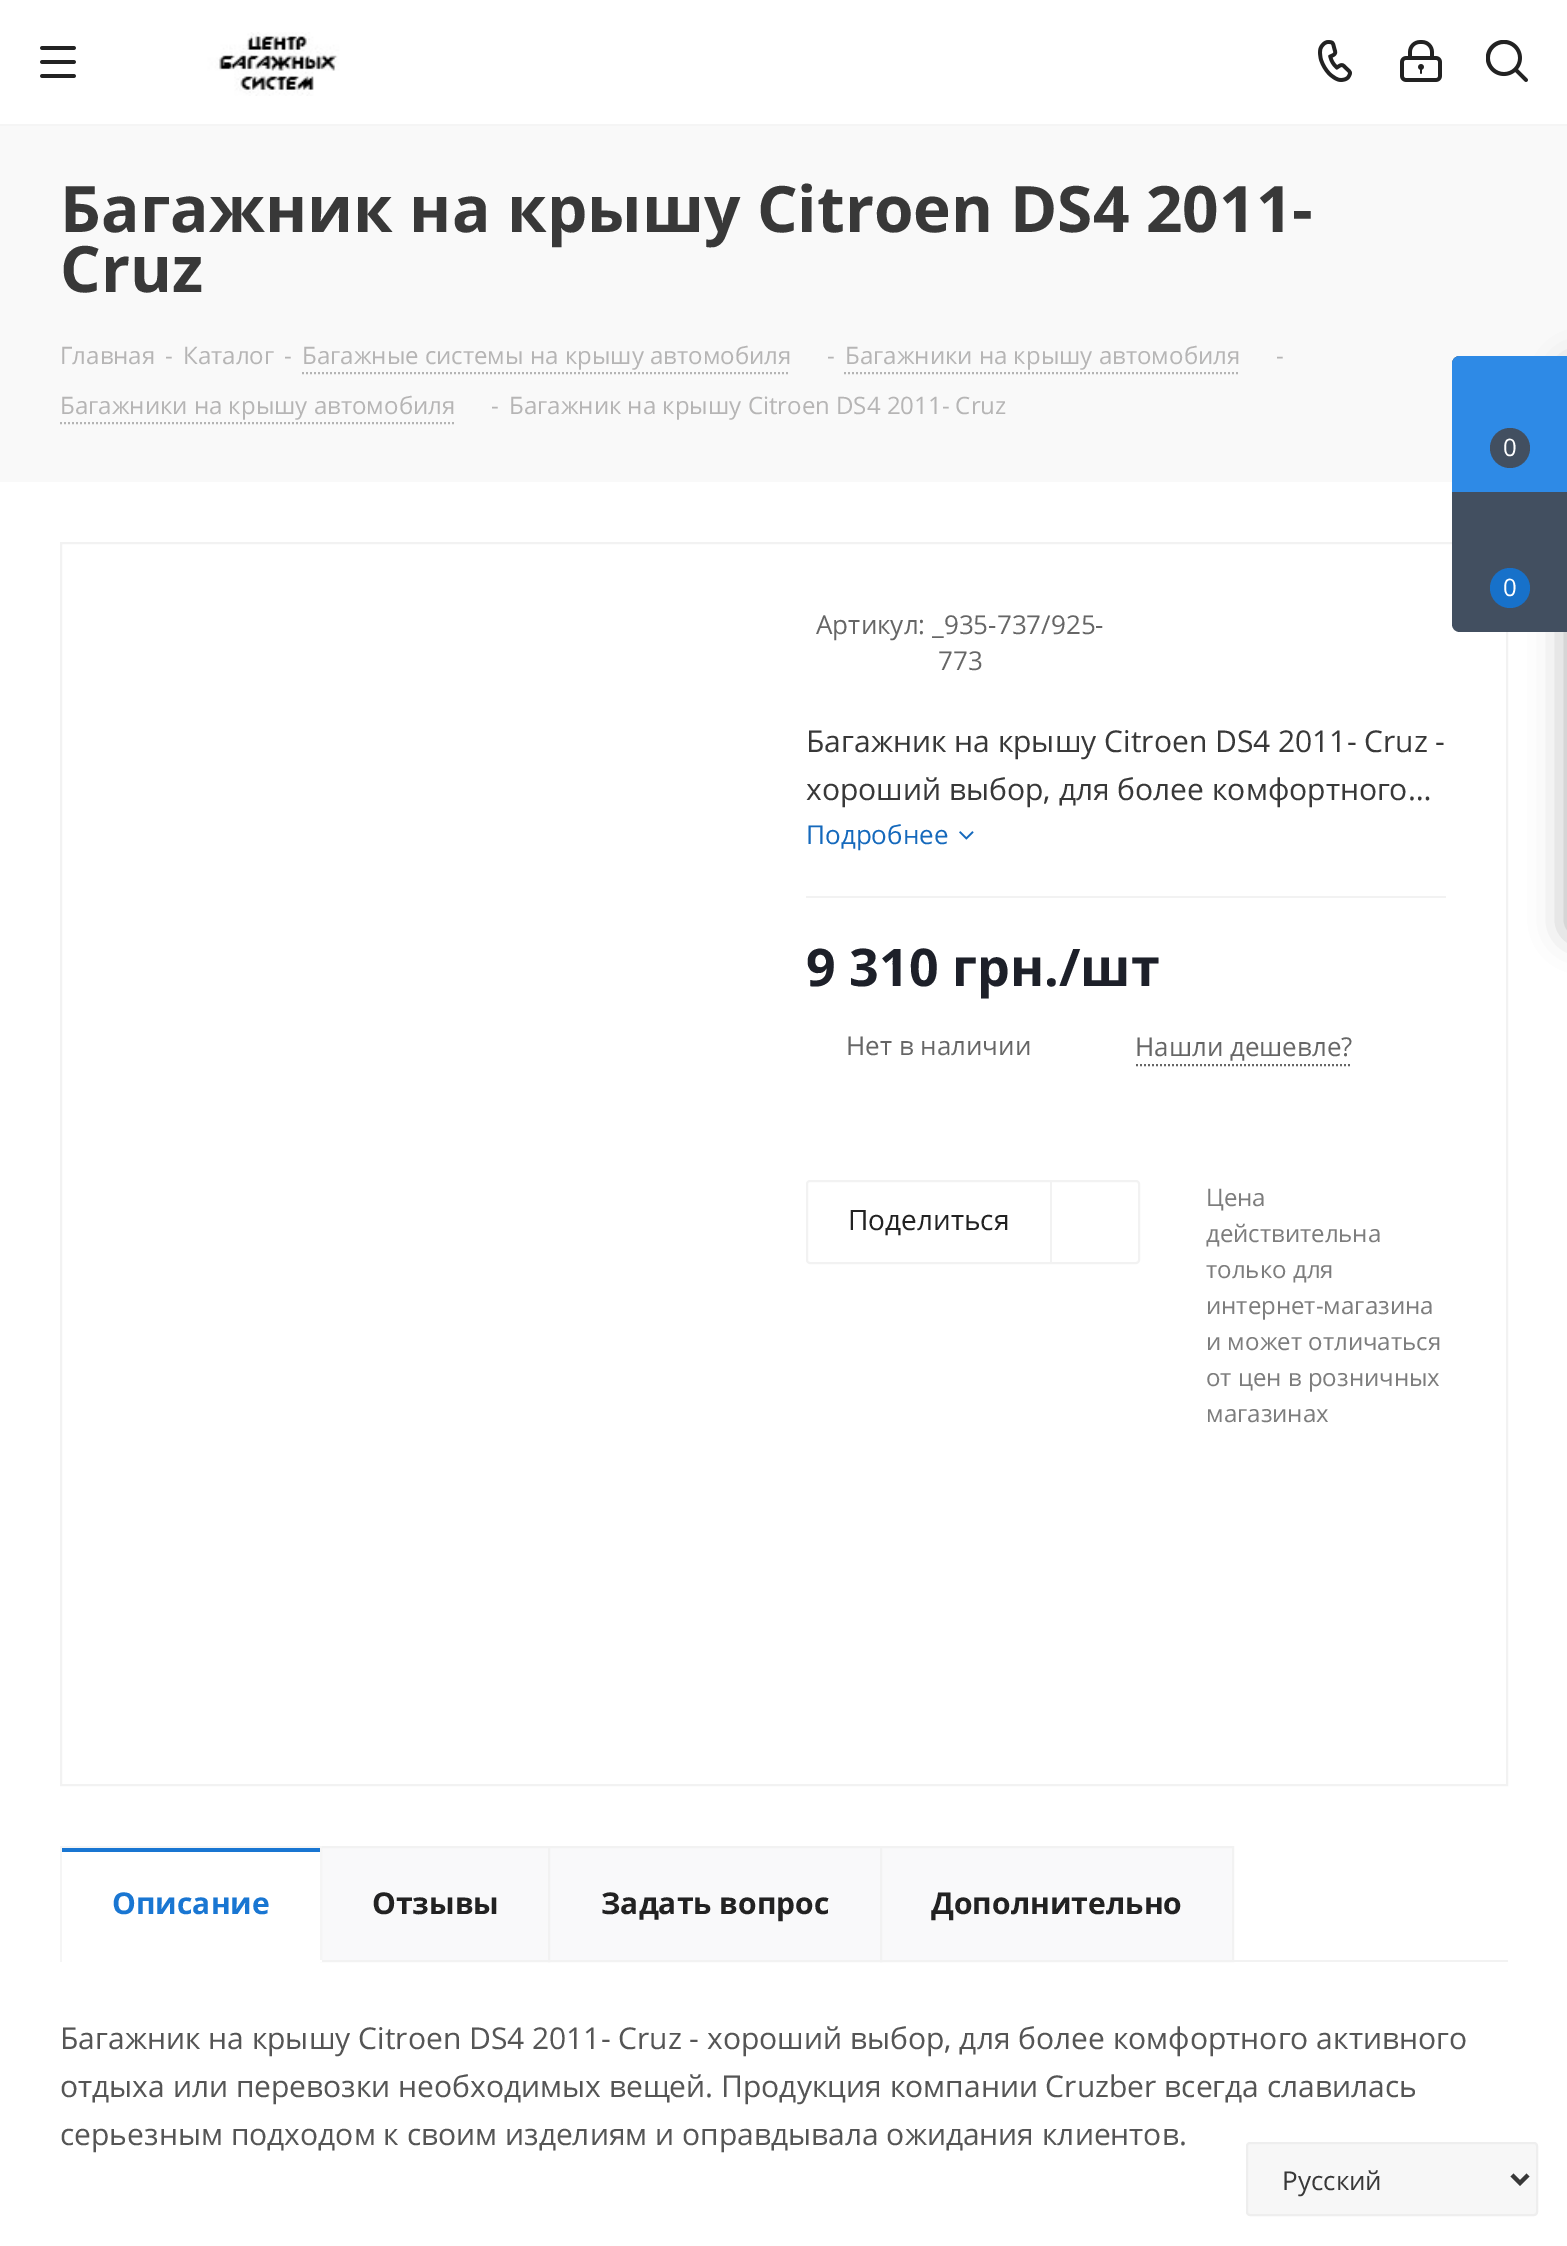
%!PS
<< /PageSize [1567 2246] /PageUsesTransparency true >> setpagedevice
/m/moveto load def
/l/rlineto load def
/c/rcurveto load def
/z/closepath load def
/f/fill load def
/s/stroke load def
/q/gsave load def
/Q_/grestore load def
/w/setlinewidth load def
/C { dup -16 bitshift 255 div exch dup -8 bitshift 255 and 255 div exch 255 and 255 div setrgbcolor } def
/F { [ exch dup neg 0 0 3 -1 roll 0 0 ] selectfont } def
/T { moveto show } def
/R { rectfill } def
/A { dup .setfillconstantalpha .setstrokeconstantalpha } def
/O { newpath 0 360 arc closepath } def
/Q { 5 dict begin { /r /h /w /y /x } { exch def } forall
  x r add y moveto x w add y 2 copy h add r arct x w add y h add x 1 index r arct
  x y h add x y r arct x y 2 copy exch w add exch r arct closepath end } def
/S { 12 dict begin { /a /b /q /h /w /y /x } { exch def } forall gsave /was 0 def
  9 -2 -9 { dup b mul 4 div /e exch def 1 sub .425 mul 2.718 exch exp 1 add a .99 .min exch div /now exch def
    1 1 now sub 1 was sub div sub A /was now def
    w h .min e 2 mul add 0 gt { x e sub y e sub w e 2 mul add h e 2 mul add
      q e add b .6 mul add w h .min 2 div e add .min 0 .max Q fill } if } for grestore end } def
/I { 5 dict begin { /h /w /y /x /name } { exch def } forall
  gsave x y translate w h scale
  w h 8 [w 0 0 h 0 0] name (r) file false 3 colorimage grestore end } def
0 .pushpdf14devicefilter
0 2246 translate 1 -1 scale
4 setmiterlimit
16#FFFFFF C
0 0 1567 2246 R
16#F5F5F5 C
0 124 1567 2 R
(1.rgb) 40 46 36 32 I
(2.rgb) 116 32 312 64 I
(3.rgb) 1318 40 34 42 I
(4.rgb) 1400 40 42 42 I
(5.rgb) 1486 40 42 42 I
16#F9F9F9 C
0 126 1567 356 R
/OpenSans-Bold 64 F
16#383838 C
(Багажник на крышу Citroen DS4 2011-) 60 232 T
(Cruz) 60 292 T
/OpenSans-Regular 24 F
16#B6B5B5 C
(Главная) 60 364 T
(-) 165 364 T
(Каталог) 183 364 T
(-) 284 364 T
(Багажные системы на крышу автомобиля) 302 364 T
16#B4B4B4 C
2 w
[2 2] 0 setdash
302 373 m 488 0 l s
16#B6B5B5 C
(-) 827 364 T
(Багажники на крышу автомобиля) 845 364 T
16#B4B4B4 C
844 373 m 396 0 l s
16#B6B5B5 C
(-) 1276 364 T
(Багажники на крышу автомобиля) 60 414 T
16#B4B4B4 C
60 423 m 396 0 l s
16#B6B5B5 C
(-) 491 414 T
(Багажник на крышу Citroen DS4 2011- Cruz) 509 414 T
16#F2F2F2 C
[] 0 setdash
61 543 1446 1242 rectstroke
806 896 640 2 R
/OpenSans-Regular 26 F
16#666666 C
(Артикул: _935-737/925-) 816 634 T
(773) 938 670 T
/OpenSans-Regular 30 F
16#383838 C
(Багажник на крышу Citroen DS4 2011- Cruz -) 806 752 T
(хороший выбор, для более комфортного…) 806 800 T
/OpenSans-Regular 26 F
16#1569BC C
(Подробнее) 806 844 T
(6.rgb) 959 831 15 9 I
/OpenSans-Bold 52 F
16#1D2029 C
(9 310 грн./шт) 806 986 T
/OpenSans-Regular 26 F
16#666666 C
(Нет в наличии) 846 1055 T
(Нашли дешевле?) 1135 1056 T
[2 2] 0 setdash
1136 1065 m 216 0 l s
16#F2F2F2 C
1050 1180 2 84 R
[] 0 setdash
807 1181 332 82 3 Q s
/OpenSans-Regular 28 F
16#222222 C
(Поделиться) 848 1230 T
/OpenSans-Regular 24 F
16#7D7D7D C
(Цена) 1206 1206 T
(действительна) 1206 1242 T
(только для) 1206 1278 T
(интернет-магазина) 1206 1314 T
(и может отличаться) 1206 1350 T
(от цен в розничных) 1206 1386 T
(магазинах) 1206 1422 T
16#F2F2F2 C
1234 1960 274 2 R
16#F9F9FA C
321 1847 m 228 0 l 0 114 l -228 0 l z q f Q_
16#F2F2F2 C
s
16#F5F5F5 C
60 1846 262 2 R
320 1846 2 116 R
16#FFFFFF C
320 1960 2 2 R
16#F5F5F5 C
60 1846 2 116 R
16#1976D2 C
62 1848 258 4 R
/OpenSans-Bold 30 F
(Описание) 112 1914 T
16#222222 C
(Отзывы) 372 1914 T
16#F9F9FA C
549 1847 m 332 0 l 0 114 l -332 0 l z q f Q_
16#F2F2F2 C
s
16#222222 C
(Задать вопрос) 601 1914 T
16#F9F9FA C
881 1847 m 352 0 l 0 114 l -352 0 l z q f Q_
16#F2F2F2 C
s
16#222222 C
(Дополнительно) 931 1914 T
/OpenSans-Regular 30 F
16#555555 C
(Багажник на крышу Citroen DS4 2011- Cruz - хороший выбор, для более комфортного активного) 60 2049 T
(отдыха или перевозки необходимых вещей. Продукция компании Cruzber всегда славилась) 60 2097 T
(серьезным подходом к своим изделиям и оправдывала ожидания клиентов.) 60 2145 T
16#2C2C2C C
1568 368 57 566 4 18 .4 S
16#424F60 C
1460 356 m 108 0 l 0 276 l -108 0 l -4.5 0 -8 -3.5 -8 -8 c 0 -260 l 0 -4.5 3.5 -8 8 -8 c z f
16#2E8AE6 C
1460 356 m 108 0 l 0 136 l -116 0 l 0 -128 l 0 -4.5 3.5 -8 8 -8 c z f
16#424F60 C
1510 448 20 O f
/OpenSans-Regular 24 F
16#FFFFFF C
(0) 1503 456 T
16#1771CA C
1510 588 20 O f
16#FFFFFF C
(0) 1503 596 T
16#F7F7F7 C
1247 2143 290 72 3 Q q f Q_
16#EEEEEE C
s
16#383838 C
4 w
1512 2175 m 8 8 l 8 -8 l s
/OpenSans-Regular 26 F
(Русский) 1282 2190 T
.poppdf14devicefilter showpage
